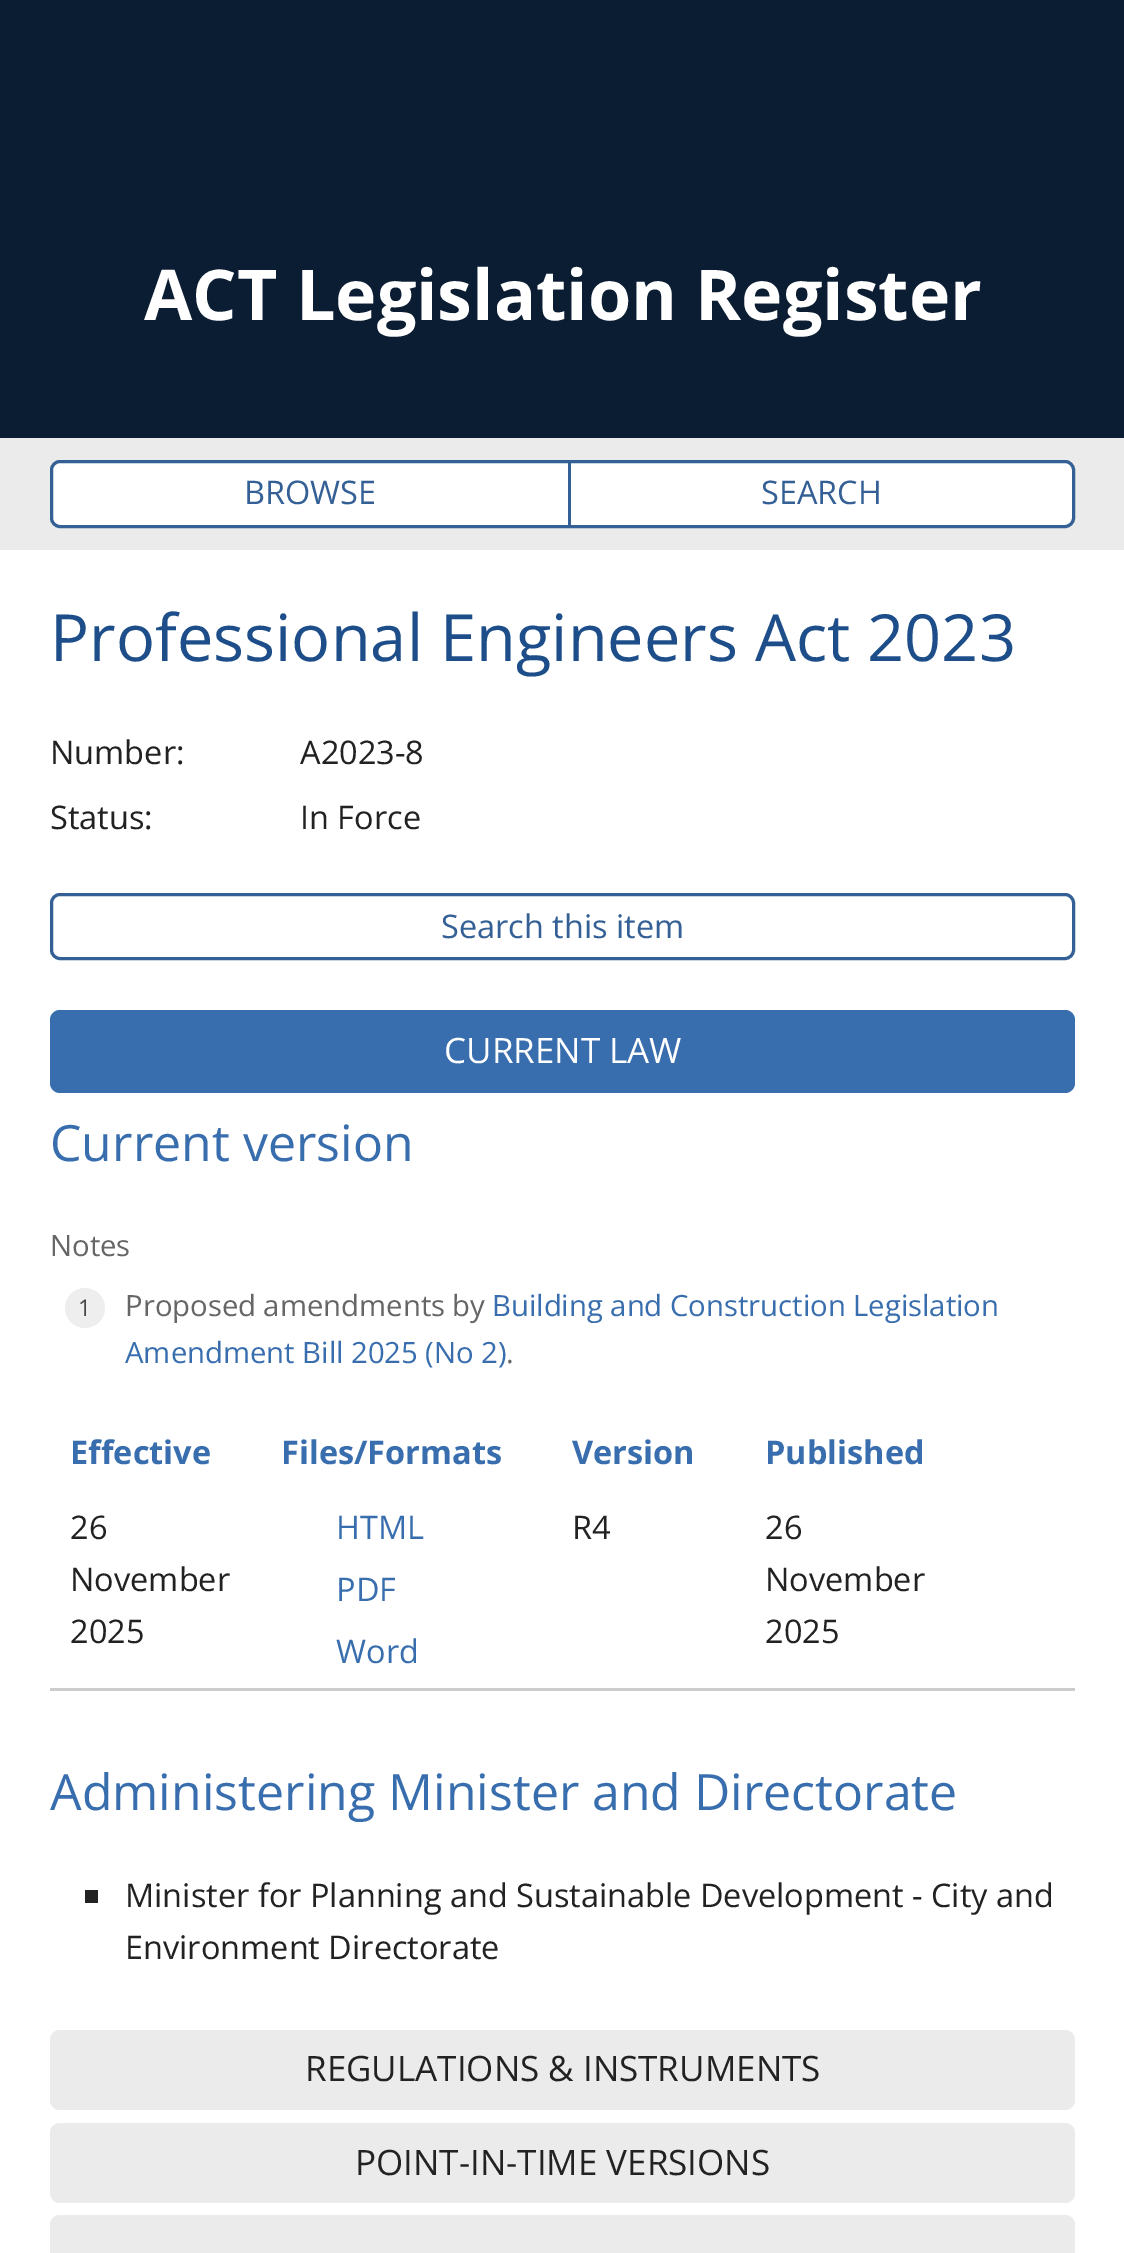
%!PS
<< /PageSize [1124 2253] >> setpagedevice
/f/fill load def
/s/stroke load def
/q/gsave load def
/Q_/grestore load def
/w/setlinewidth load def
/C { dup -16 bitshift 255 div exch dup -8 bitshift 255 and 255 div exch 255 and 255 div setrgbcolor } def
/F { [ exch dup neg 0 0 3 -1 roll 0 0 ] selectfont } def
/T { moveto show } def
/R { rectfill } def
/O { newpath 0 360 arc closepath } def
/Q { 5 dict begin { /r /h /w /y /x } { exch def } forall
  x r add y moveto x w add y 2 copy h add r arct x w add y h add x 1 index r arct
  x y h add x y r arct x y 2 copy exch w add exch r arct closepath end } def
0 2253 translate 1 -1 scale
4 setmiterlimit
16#FFFFFF C
0 0 1124 2253 R
16#0B1D33 C
0 0 1124 438 R
/OpenSans-Bold 70 F
16#FFFFFF C
(ACT Legislation Register) 144 320 T
16#EBEBEB C
0 438 1124 112 R
16#FFFFFF C
51.5 461.5 1022 65 8.5 Q q f Q_
16#346095 C
3 w
s
/OpenSans-Regular 32.5 F
(BROWSE) 244 504 T
568 463 3 62 R
(SEARCH) 761 504 T
/OpenSans-Regular 65 F
16#1D4E89 C
(Professional Engineers Act 2023) 50 661 T
/OpenSans-Regular 32.5 F
16#222222 C
(Number:) 50 764 T
(A2023-8) 300 764 T
(Status:) 50 829 T
(In Force) 300 829 T
16#346095 C
51.5 894.5 1022 64 8.5 Q s
(Search this item) 441 938 T
16#396EAE C
50 1010 1025 83 10 Q f
/OpenSans-Regular 35 F
16#FFFFFF C
(CURRENT LAW) 444 1063 T
/OpenSans-Regular 50 F
16#396EAE C
(Current version) 50 1161 T
/OpenSans-Regular 29.25 F
16#666666 C
(Notes) 50 1256 T
16#EEEEEE C
85 1308 20 O f
/OpenSans-Regular 23 F
16#444444 C
(1) 78 1316 T
/OpenSans-Regular 29.25 F
16#666666 C
(Proposed amendments by) 125 1316 T
16#396EAE C
(Building and Construction Legislation) 492 1316 T
(Amendment Bill 2025 \(No 2\)) 125 1363 T
16#666666 C
(.) 506 1363 T
16#CCCCCC C
50 1688 1025 3 R
/OpenSans-Bold 32.5 F
16#396EAE C
(Effective) 70 1464 T
(Files/Formats) 281 1464 T
(Version) 572 1464 T
(Published) 765 1464 T
/OpenSans-Regular 32.5 F
16#222222 C
(26) 70 1539 T
(November) 70 1591 T
(2025) 70 1643 T
16#396EAE C
(HTML) 336 1539 T
(PDF) 336 1601 T
(Word) 336 1663 T
16#222222 C
(R4) 572 1539 T
(26) 765 1539 T
(November) 765 1591 T
(2025) 765 1643 T
/OpenSans-Regular 50 F
16#396EAE C
(Administering Minister and Directorate) 50 1810 T
16#222222 C
85 1890 13 13 R
/OpenSans-Regular 32.5 F
(Minister for Planning and Sustainable Development - City and) 125 1907 T
(Environment Directorate) 125 1959 T
16#EBEBEB C
50 2030 1025 80 10 Q f
/OpenSans-Regular 35 F
16#222222 C
(REGULATIONS & INSTRUMENTS) 305 2081 T
16#EBEBEB C
50 2123 1025 80 10 Q f
16#222222 C
(POINT-IN-TIME VERSIONS) 355 2175 T
16#EBEBEB C
50 2215 1025 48 10 Q f
showpage
